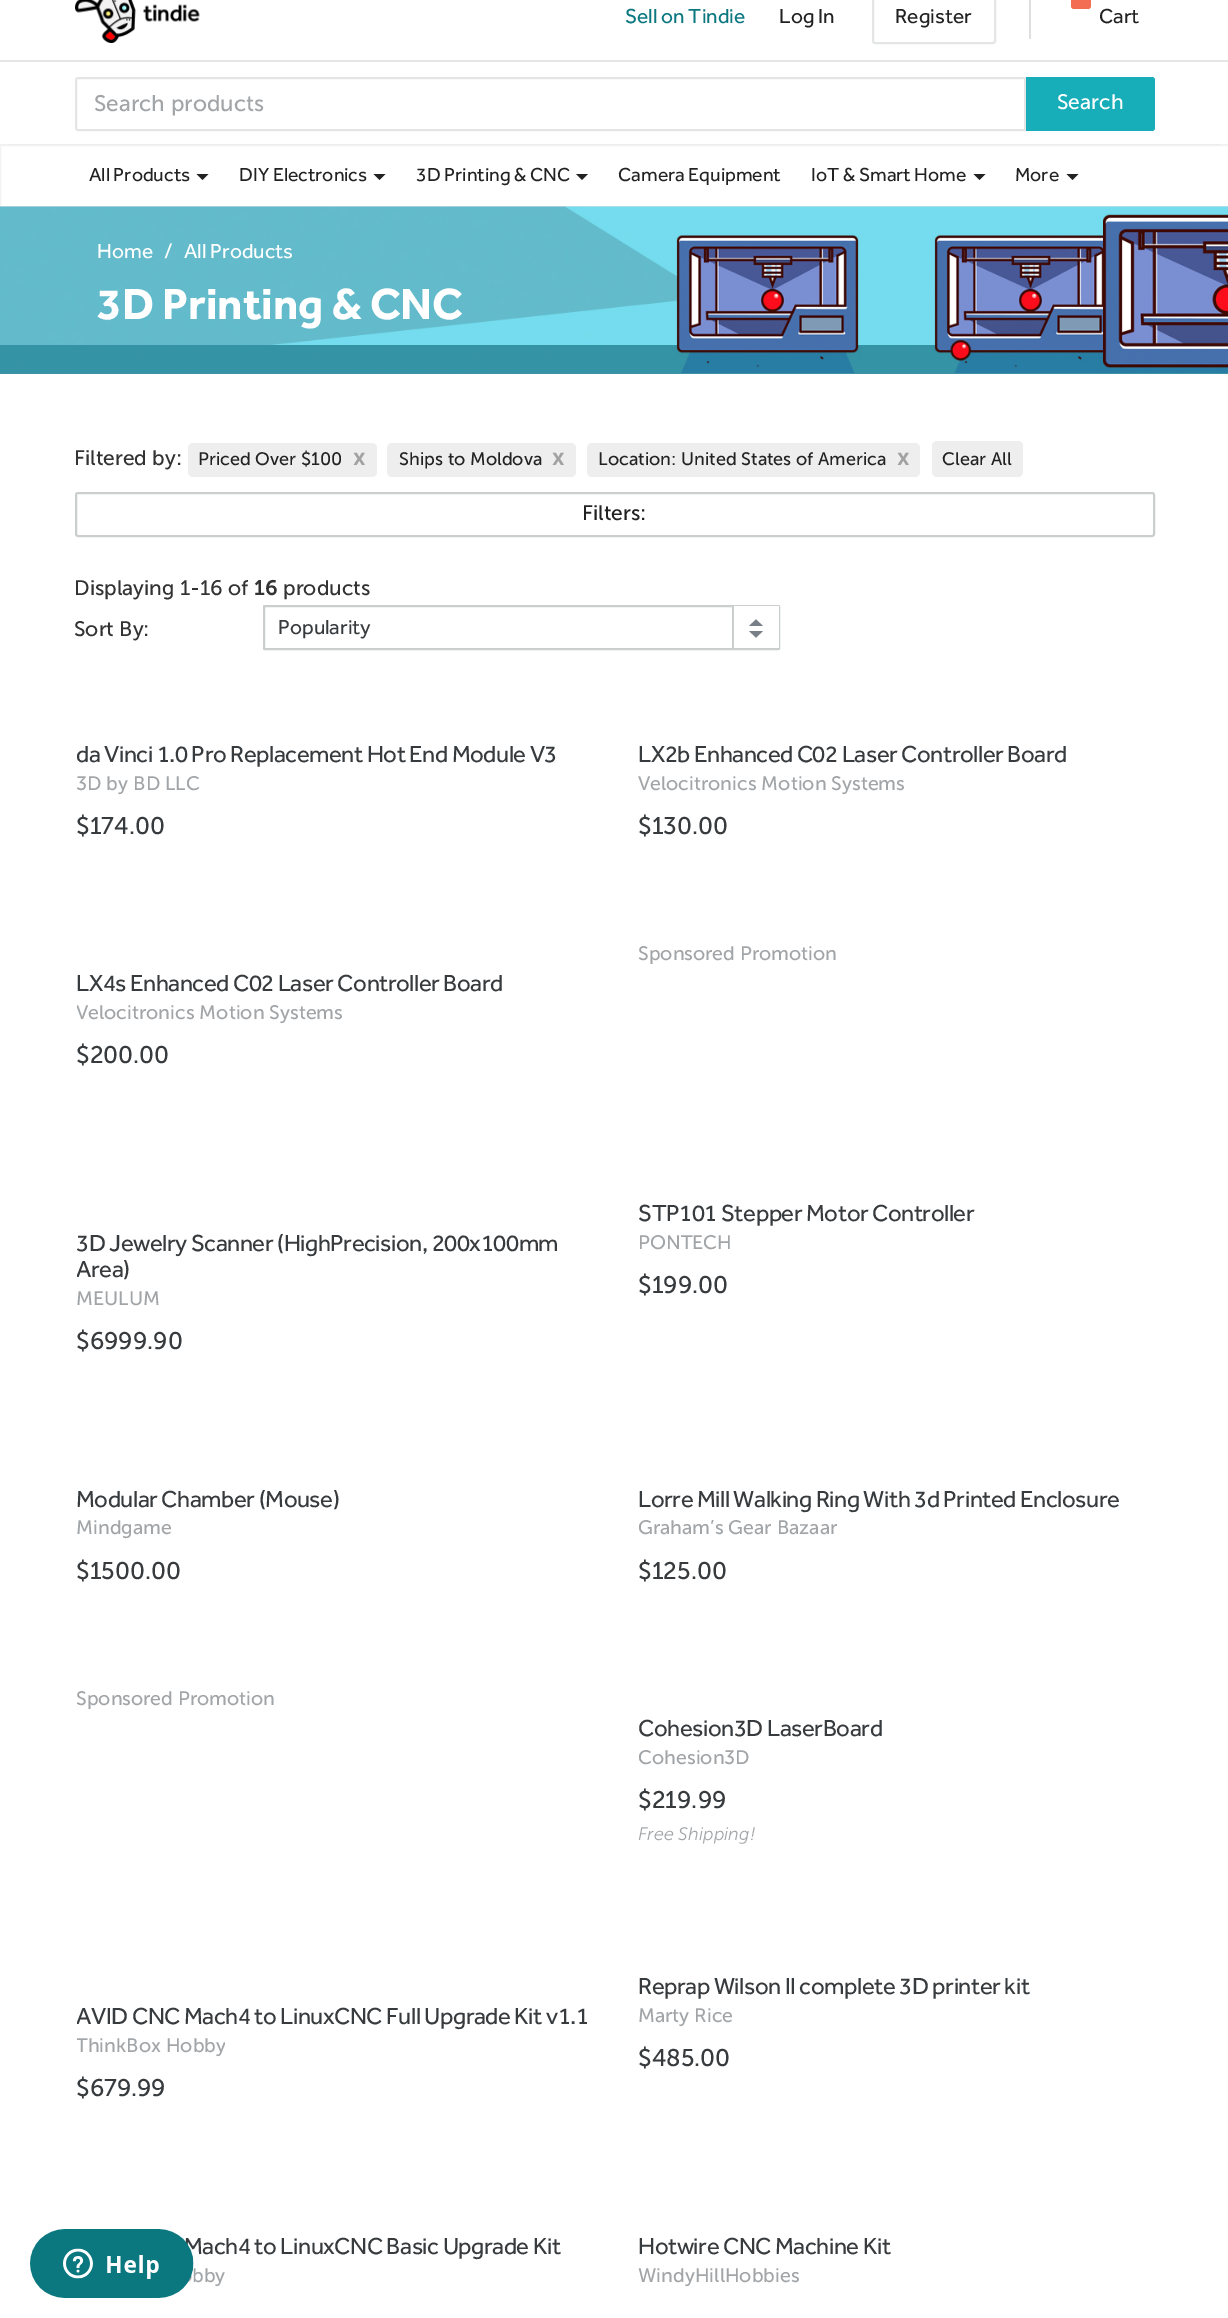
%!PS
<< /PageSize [1228 2318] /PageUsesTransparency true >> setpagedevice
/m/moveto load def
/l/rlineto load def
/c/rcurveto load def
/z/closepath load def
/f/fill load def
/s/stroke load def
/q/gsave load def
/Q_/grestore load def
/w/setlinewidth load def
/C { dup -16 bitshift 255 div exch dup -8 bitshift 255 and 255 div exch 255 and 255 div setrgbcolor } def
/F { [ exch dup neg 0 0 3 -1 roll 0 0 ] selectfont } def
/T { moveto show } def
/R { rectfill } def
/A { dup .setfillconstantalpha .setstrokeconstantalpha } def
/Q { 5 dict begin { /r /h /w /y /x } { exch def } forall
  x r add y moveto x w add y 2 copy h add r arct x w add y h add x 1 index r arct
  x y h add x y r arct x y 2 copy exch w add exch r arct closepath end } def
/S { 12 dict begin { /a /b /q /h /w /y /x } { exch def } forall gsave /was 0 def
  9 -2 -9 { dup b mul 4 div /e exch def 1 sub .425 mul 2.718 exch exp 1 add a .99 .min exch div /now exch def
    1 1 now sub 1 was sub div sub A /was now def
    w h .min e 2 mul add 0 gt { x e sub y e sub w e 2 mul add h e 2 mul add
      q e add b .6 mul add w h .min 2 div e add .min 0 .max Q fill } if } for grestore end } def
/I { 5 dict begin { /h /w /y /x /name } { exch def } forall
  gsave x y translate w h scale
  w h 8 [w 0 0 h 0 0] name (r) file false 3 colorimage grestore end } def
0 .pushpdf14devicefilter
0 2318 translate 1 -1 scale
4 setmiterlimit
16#FFFFFF C
0 0 1228 2318 R
16#E4E5E7 C
0 60 1228 2 R
(1.rgb) 75 0 125 43 I
/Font-Regular 21 F
16#0B777F C
(Sell on Tindie) 625 23 T
16#222222 C
(Log In) 779 23 T
16#E4E5E7 C
2 w
873 -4 122 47 2 Q s
16#222222 C
(Register) 895 23 T
16#DDDFE1 C
1029 0 2 39 R
16#F36C54 C
1071 -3 20 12 3 Q f
16#222222 C
(Cart) 1099 23 T
16#E4E5E7 C
78 78 m 947 0 l 0 52 l -947 0 l -1 0 -2 -1 -2 -2 c 0 -48 l 0 -1 1 -2 2 -2 c z s
/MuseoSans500-Regular 22.5 F
16#A2A5A8 C
(Search products) 94 111 T
16#17AEB9 C
1026 77 m 126 0 l 1.5 0 3 1.5 3 3 c 0 48 l 0 1.5 -1.5 3 -3 3 c -126 0 l z f
/MuseoSans500-Regular 21 F
16#FFFFFF C
(Search) 1057 109 T
16#F2F2F2 C
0 145 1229 63 rectstroke
q
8 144 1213 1 rectclip
16#000000 C
0 147 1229 62 0 3 .1 S
Q_
16#E4E5E7 C
0 206 1228 1 R
/Font-Regular 19.5 F
16#222222 C
(All Products) 89 181 T
196.5 174 m 12 0 l -6 6 l z f
(DIY Electronics) 239 181 T
373.5 174 m 12 0 l -6 6 l z f
(3D Printing & CNC) 416 181 T
576 174 m 12 0 l -6 6 l z f
(Camera Equipment) 618 181 T
(IoT & Smart Home) 811 181 T
973.5 174 m 12 0 l -6 6 l z f
(More) 1015 181 T
1066.5 174 m 12 0 l -6 6 l z f
16#3F92A5 C
0 373 1228 1 R
(2.rgb) 0 206 1228 167 I
/Font-Regular 21 F
16#FFFFFF C
(Home) 97 258 T
(/) 164 258 T
(All Products) 184 258 T
/Font-Bold 45 F
(3D Printing & CNC) 97 319 T
/MuseoSans500-Regular 21 F
16#333333 C
(Filtered by:) 74 465 T
16#EEEEEE C
188 443 189 34 5 Q f
/MuseoSans500-Regular 18 F
16#222222 C
(Priced Over $100) 198 465 T
/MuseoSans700-SemiBold 24 F
16#A2A2A2 C
(x) 353 465 T
16#EEEEEE C
387 443 189 34 5 Q f
/MuseoSans500-Regular 18 F
16#222222 C
(Ships to Moldova) 399 465 T
/MuseoSans700-SemiBold 24 F
16#A2A2A2 C
(x) 552 465 T
16#EEEEEE C
587 443 333 34 5 Q f
/MuseoSans500-Regular 18 F
16#222222 C
(Location: United States of America) 598 465 T
/MuseoSans700-SemiBold 24 F
16#A2A2A2 C
(x) 897 465 T
16#EEEEEE C
932 441 91 36 5 Q f
/MuseoSans500-Regular 18 F
16#222222 C
(Clear All) 942 465 T
16#CACECF C
76 493 1078 43 2 Q s
/MuseoSans500-Regular 21 F
16#222222 C
(Filters:) 582 520 T
16#333333 C
(Displaying 1-16 of) 74 595 T
/MuseoSans700-SemiBold 21 F
(16) 254 595 T
/MuseoSans500-Regular 21 F
(products) 283 595 T
(Sort By:) 74 636 T
16#CACECF C
264 606 515 43 .5 Q s
/Font-Regular 21 F
16#373B3E C
(Popularity) 278 634 T
16#FFFFFF C
734 606 45 42 R
16#787F87 C
756 619.5 m -7 6.5 l 14 0 l z 756 637.5 m 7 -6.5 l -14 0 l z eofill
16#CACECF C
732 606 2 42 R
q
77 741 514 26 rectclip
/Font-Regular 24 F
16#373B3E C
76 762 m -.45 0 (da Vinci 1.0 Pro Replacement Hot End Module V3) ashow
Q_
/MuseoSans500-Regular 19.5 F
16#A2A5A8 C
(3D by BD LLC) 76 790 T
/MuseoSans500-Regular 24 F
16#373B3E C
($174.00) 76 834 T
/Font-Regular 24 F
638 762 m -.45 0 (LX2b Enhanced C02 Laser Controller Board) ashow
/MuseoSans500-Regular 19.5 F
16#A2A5A8 C
(Velocitronics Motion Systems) 638 790 T
/MuseoSans500-Regular 24 F
16#373B3E C
($130.00) 638 834 T
/MuseoSans500-Regular 19.5 F
16#A2A5A8 C
(Sponsored Promotion) 638 960 T
/Font-Regular 24 F
16#373B3E C
76 991 m -.45 0 (LX4s Enhanced C02 Laser Controller Board) ashow
q
77 999 267 29 rectclip
/MuseoSans500-Regular 19.5 F
16#A2A5A8 C
(Velocitronics Motion Systems) 76 1019 T
Q_
/MuseoSans500-Regular 24 F
($200.00) 76 1063 T
/Font-Regular 24 F
76 1251 m -.45 0 (3D Jewelry Scanner \(HighPrecision, 200x100mm) ashow
q
77 1230 514 53 rectclip
76 1277 m -.45 0 (Area\)) ashow
Q_
/MuseoSans500-Regular 19.5 F
16#A2A5A8 C
(MEULUM) 76 1305 T
/MuseoSans500-Regular 24 F
16#373B3E C
($6999.90) 76 1349 T
/Font-Regular 24 F
638 1221 m -.45 0 (STP101 Stepper Motor Controller) ashow
/MuseoSans500-Regular 19.5 F
16#A2A5A8 C
(PONTECH) 638 1249 T
/MuseoSans500-Regular 24 F
16#373B3E C
($199.00) 638 1293 T
/Font-Regular 24 F
76 1507 m -.45 0 (Modular Chamber \(Mouse\)) ashow
/MuseoSans500-Regular 19.5 F
16#A2A5A8 C
(Mindgame) 76 1534 T
/MuseoSans500-Regular 24 F
16#373B3E C
($1500.00) 76 1579 T
/Font-Regular 24 F
638 1507 m -.45 0 (Lorre Mill Walking Ring With 3d Printed Enclosure) ashow
/MuseoSans500-Regular 19.5 F
16#A2A5A8 C
(Graham’s Gear Bazaar) 638 1534 T
/MuseoSans500-Regular 24 F
16#373B3E C
($125.00) 638 1579 T
/MuseoSans500-Regular 19.5 F
16#A2A5A8 C
(Sponsored Promotion) 76 1705 T
/Font-Regular 24 F
16#373B3E C
638 1736 m -.45 0 (Cohesion3D LaserBoard) ashow
/MuseoSans500-Regular 19.5 F
16#A2A5A8 C
(Cohesion3D) 638 1764 T
/MuseoSans500-Regular 24 F
16#373B3E C
($219.99) 638 1808 T
/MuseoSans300-LightItalic 18 F
16#A2A5A8 C
(Free Shipping!) 638 1840 T
q
77 2003 514 27 rectclip
/Font-Regular 24 F
16#373B3E C
76 2024 m -.45 0 (AVID CNC Mach4 to LinuxCNC Full Upgrade Kit v1.1) ashow
Q_
q
77 2033 148 28 rectclip
/MuseoSans500-Regular 19.5 F
(ThinkBox Hobby) 76 2052 T
Q_
/MuseoSans500-Regular 24 F
16#373B3E C
($679.99) 76 2096 T
/Font-Regular 24 F
638 1994 m -.45 0 (Reprap Wilson II complete 3D printer kit) ashow
/MuseoSans500-Regular 19.5 F
16#A2A5A8 C
(Marty Rice) 638 2022 T
/MuseoSans500-Regular 24 F
16#373B3E C
($485.00) 638 2066 T
/Font-Regular 24 F
184 2254 m -.45 0 (Mach4 to LinuxCNC Basic Upgrade Kit) ashow
/MuseoSans500-Regular 19.5 F
16#A2A5A8 C
(bby) 192 2282 T
/Font-Regular 24 F
16#373B3E C
638 2254 m -.45 0 (Hotwire CNC Machine Kit) ashow
/MuseoSans500-Regular 19.5 F
16#A2A5A8 C
(WindyHillHobbies) 638 2282 T
(3.rgb) 30 2229 164 69 I
.poppdf14devicefilter showpage
